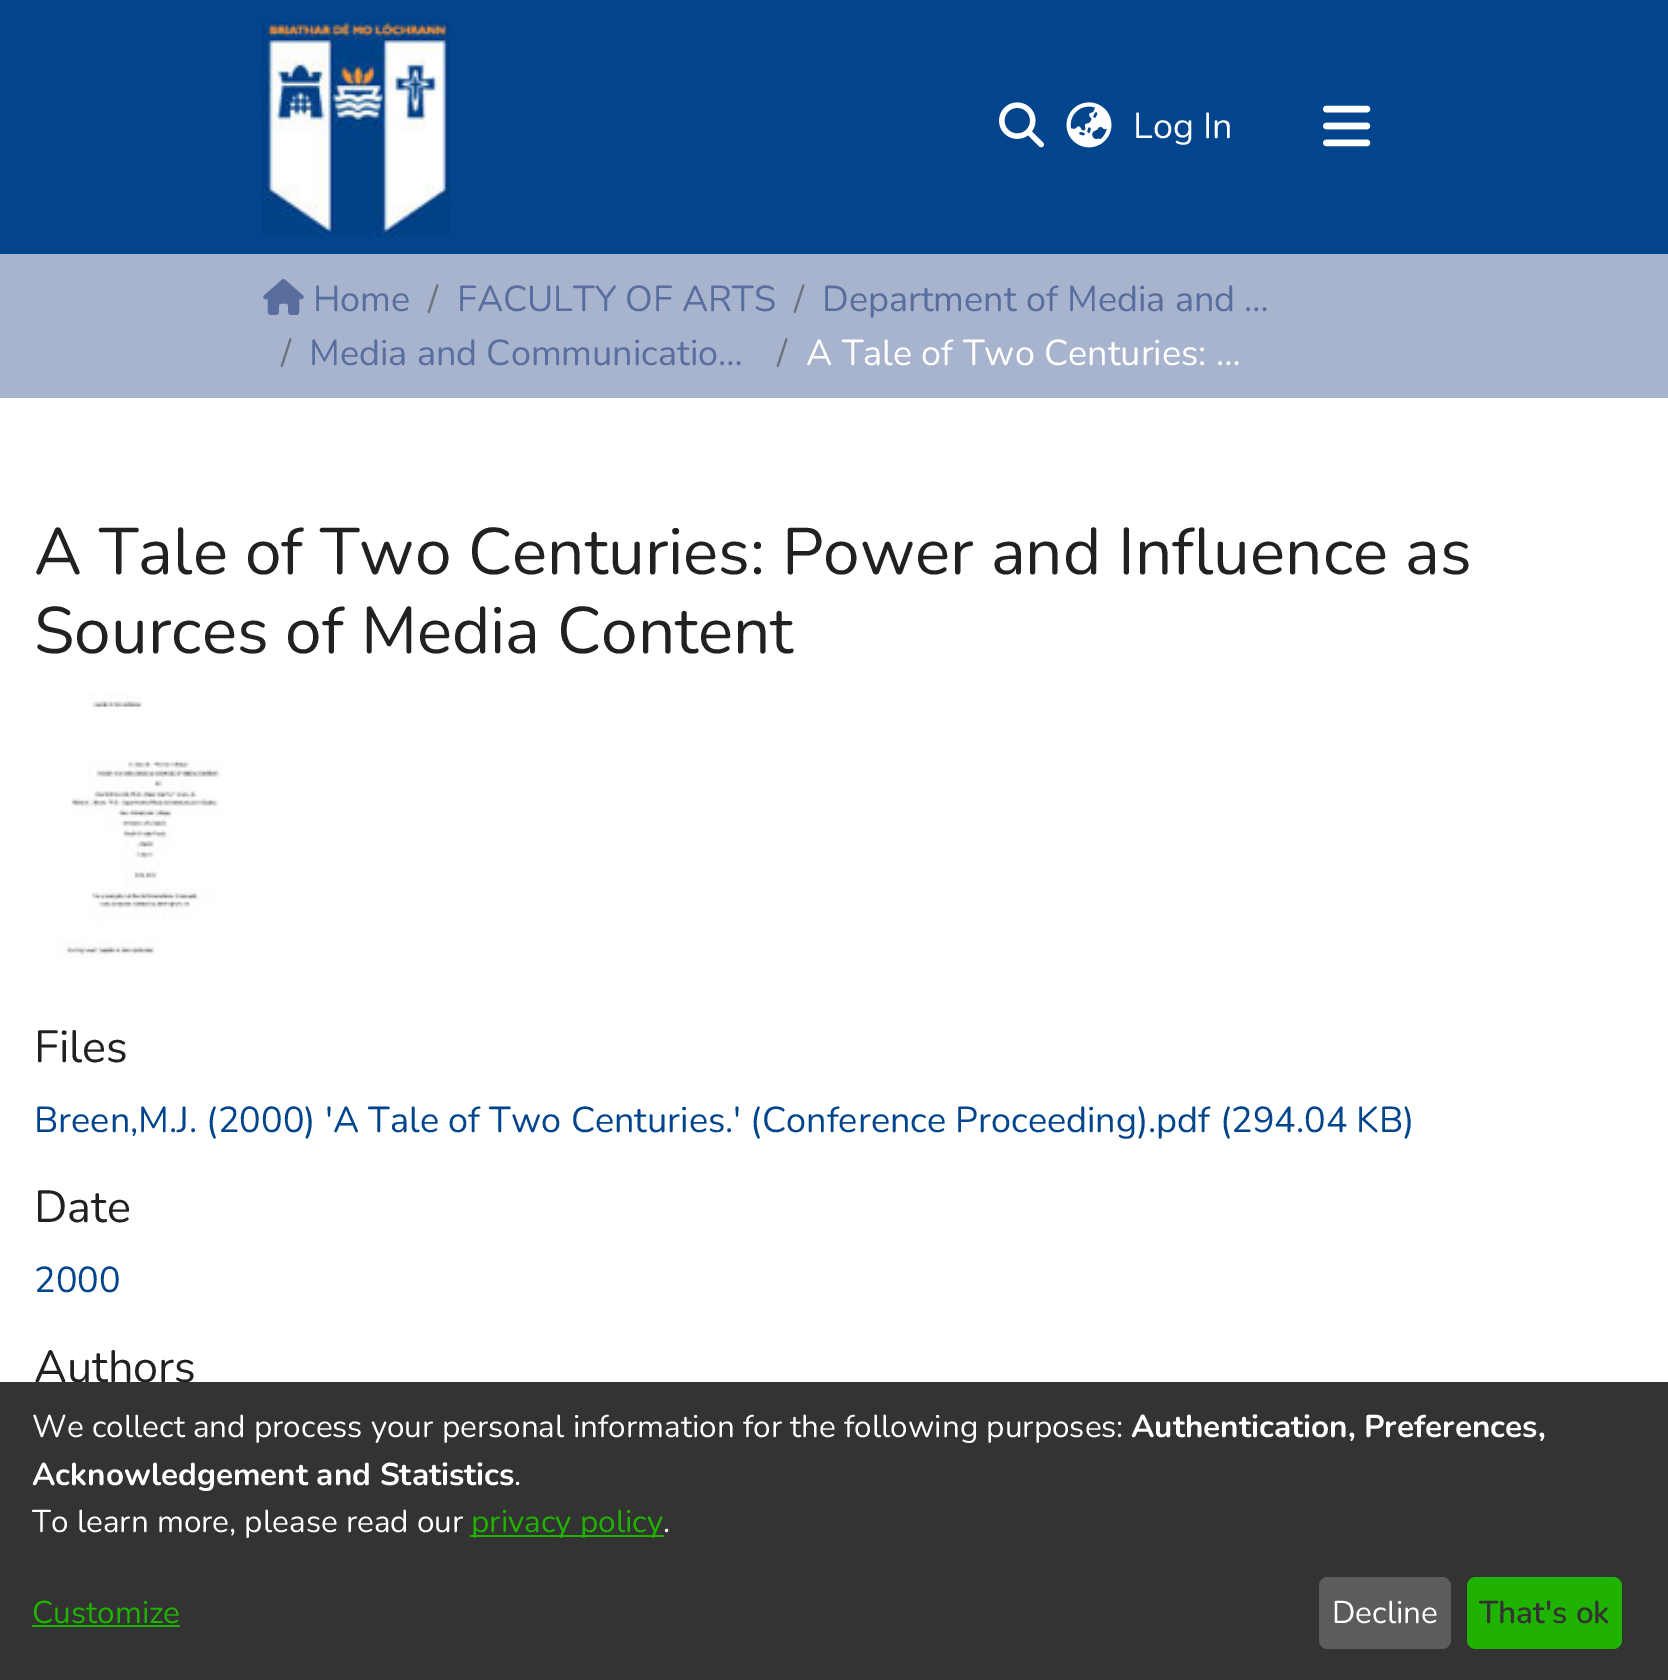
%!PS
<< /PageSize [1668 1680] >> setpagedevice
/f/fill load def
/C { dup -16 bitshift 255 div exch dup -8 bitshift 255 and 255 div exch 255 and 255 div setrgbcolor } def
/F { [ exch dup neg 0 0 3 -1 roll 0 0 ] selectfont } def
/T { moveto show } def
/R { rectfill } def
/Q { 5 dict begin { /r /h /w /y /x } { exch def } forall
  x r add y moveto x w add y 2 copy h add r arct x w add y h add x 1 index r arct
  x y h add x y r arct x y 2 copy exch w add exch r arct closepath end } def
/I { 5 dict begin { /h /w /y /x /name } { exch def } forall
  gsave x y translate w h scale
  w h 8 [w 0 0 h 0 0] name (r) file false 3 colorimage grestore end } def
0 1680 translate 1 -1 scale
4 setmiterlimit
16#FFFFFF C
0 0 1668 1680 R
16#02458C C
0 0 1668 254 R
(1.rgb) 262 22 188 215 I
(2.rgb) 999 102 45 46 I
(3.rgb) 1066 102 46 46 I
/Nunito-Regular 36 F
16#FFFFFF C
(Log In) 1133 138 T
(4.rgb) 1323 105 48 42 I
16#A8B4CE C
0 254 1668 144 R
(5.rgb) 263 279 41 36 I
16#596E9E C
(Home) 313 311 T
16#6C757D C
(/) 428 311 T
16#596E9E C
(FACULTY OF ARTS) 457 311 T
16#6C757D C
(/) 794 311 T
16#596E9E C
(Department of Media and …) 822 311 T
16#6C757D C
(/) 281 365 T
16#596E9E C
(Media and Communicatio…) 309 365 T
16#6C757D C
(/) 777 365 T
16#FFFFFF C
(A Tale of Two Centuries: …) 806 365 T
/Nunito-Regular 65.7 F
16#212121 C
(A Tale of Two Centuries: Power and Influence as) 34 574 T
(Sources of Media Content) 34 653 T
(6.rgb) 57 693 165 265 I
/Nunito-Regular 45 F
(Files) 34 1062 T
/Nunito-Regular 36 F
16#02458C C
(Breen,M.J. \(2000\) 'A Tale of Two Centuries.' \(Conference Proceeding\).pdf \(294.04 KB\)) 34 1132 T
/Nunito-Regular 45 F
16#212121 C
(Date) 34 1222 T
/Nunito-Regular 36 F
16#02458C C
(2000) 34 1292 T
/Nunito-Regular 45 F
16#212121 C
(Authors) 34 1382 T
16#333333 C
0 1382 1668 298 R
/Nunito-Regular 31.5 F
16#FFFFFF C
(We collect and process your personal information for the following purposes:) 32 1437 T
/Nunito-Bold 31.5 F
(Authentication, Preferences,) 1131 1437 T
(Acknowledgement and Statistics) 32 1485 T
/Nunito-Regular 31.5 F
(.) 514 1485 T
(To learn more, please read our) 32 1532 T
16#1FB300 C
470 1535 194 2 R
(privacy policy) 471 1532 T
16#FFFFFF C
(.) 663 1532 T
16#1FB300 C
(Customize) 32 1623 T
32 1625 148 2 R
16#5C5C5C C
1319 1577 132 72 9 Q f
16#FFFFFF C
(Decline) 1332 1623 T
16#1FB300 C
1467 1577 155 72 9 Q f
/Nunito-SemiBold 31.5 F
16#333333 C
(That's ok) 1479 1623 T
showpage
